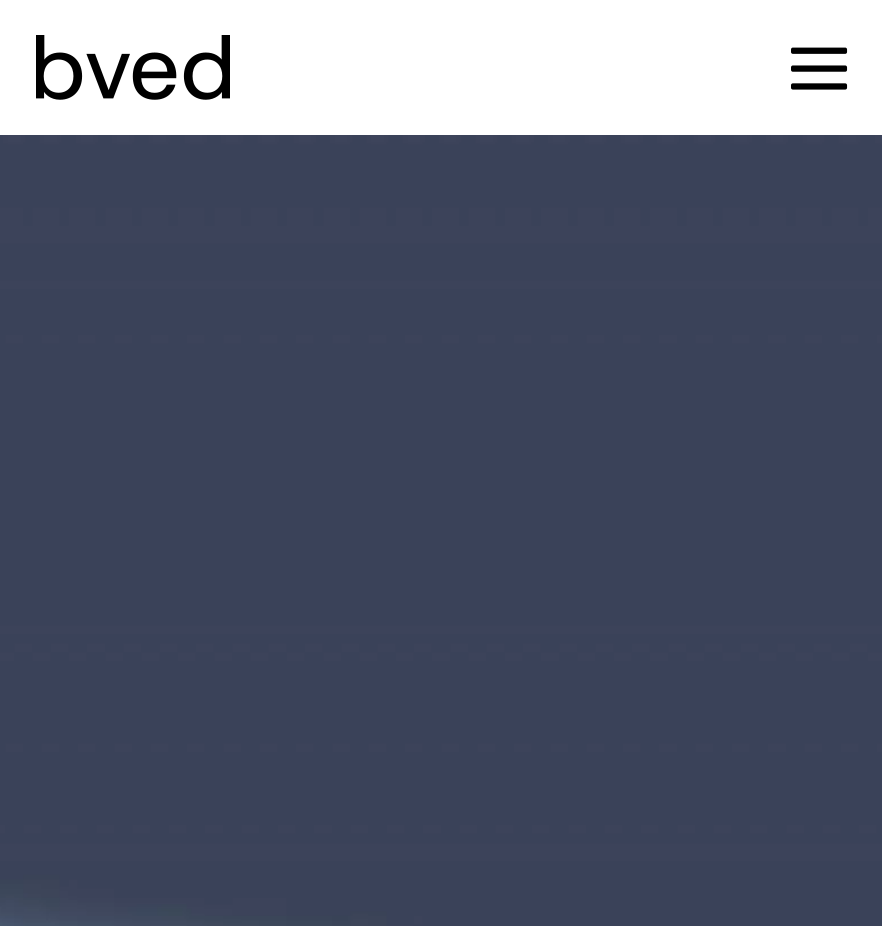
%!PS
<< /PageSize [882 926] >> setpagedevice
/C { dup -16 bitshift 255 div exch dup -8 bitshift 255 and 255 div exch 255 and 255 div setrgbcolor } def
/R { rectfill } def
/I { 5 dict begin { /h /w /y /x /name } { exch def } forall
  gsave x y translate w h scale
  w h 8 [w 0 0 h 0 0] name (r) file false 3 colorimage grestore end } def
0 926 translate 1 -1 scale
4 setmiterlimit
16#FFFFFF C
0 0 882 926 R
(1.rgb) 36 35 194 65 I
(2.rgb) 791 47 57 43 I
(3.rgb) 0 135 882 791 I
showpage
